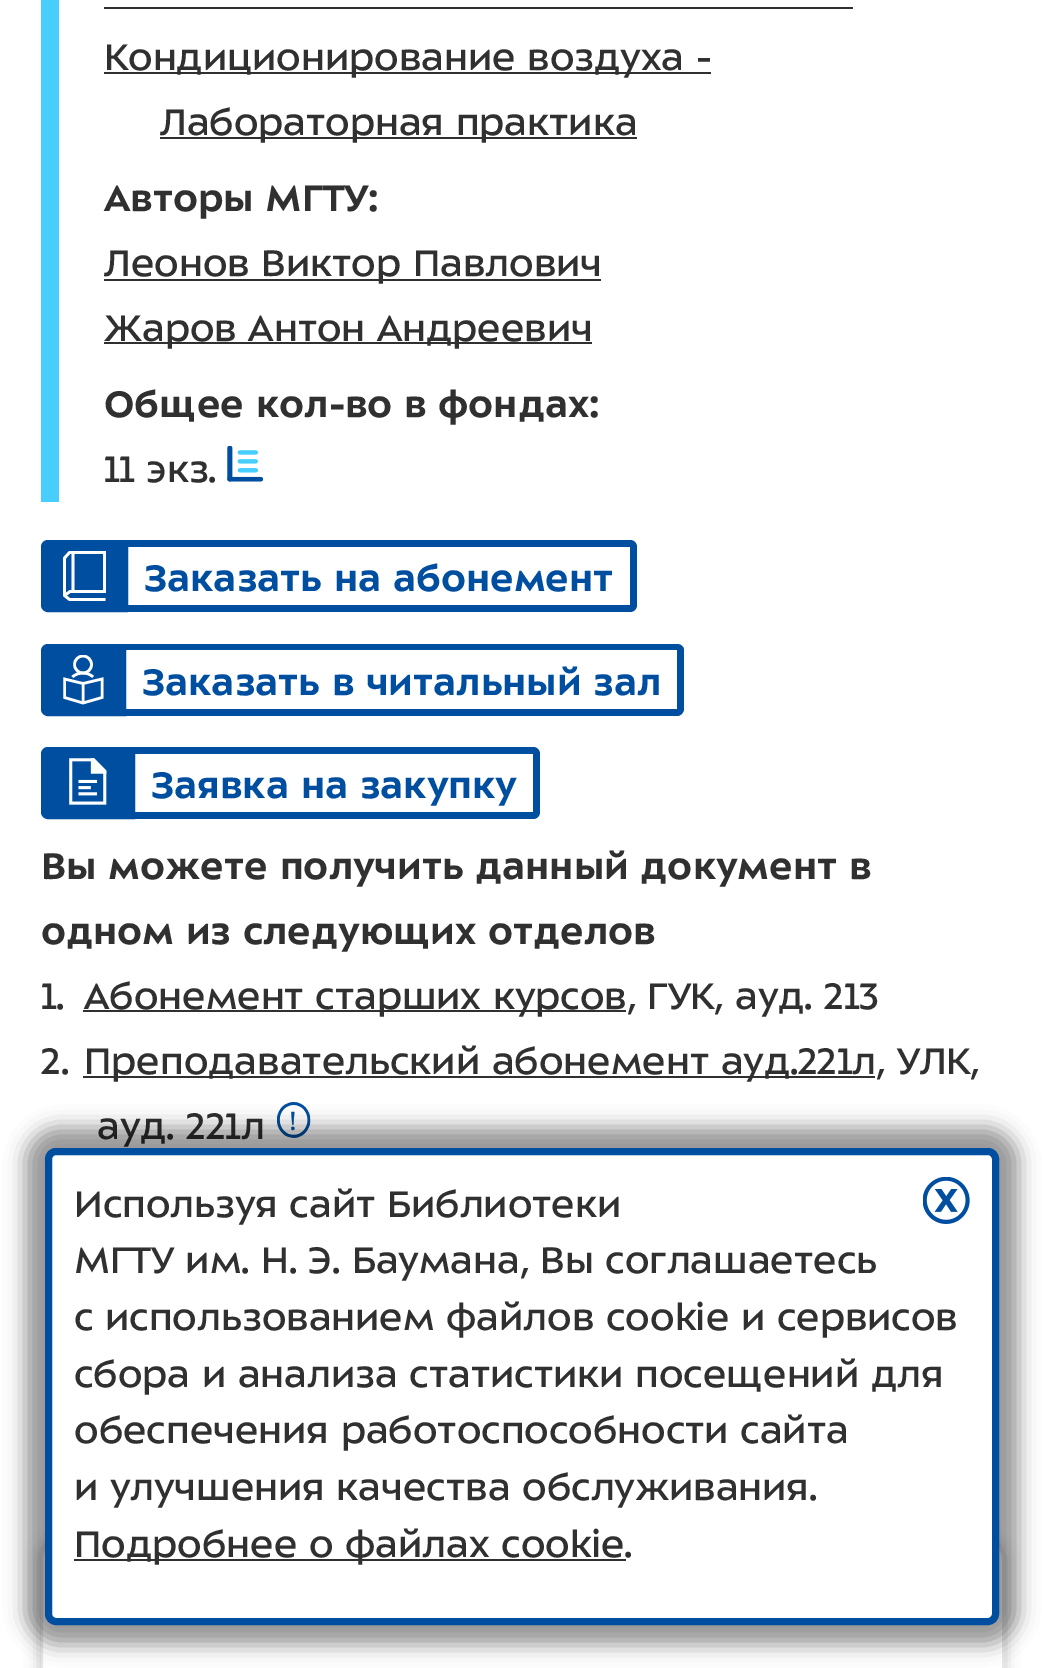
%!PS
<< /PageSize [1042 1668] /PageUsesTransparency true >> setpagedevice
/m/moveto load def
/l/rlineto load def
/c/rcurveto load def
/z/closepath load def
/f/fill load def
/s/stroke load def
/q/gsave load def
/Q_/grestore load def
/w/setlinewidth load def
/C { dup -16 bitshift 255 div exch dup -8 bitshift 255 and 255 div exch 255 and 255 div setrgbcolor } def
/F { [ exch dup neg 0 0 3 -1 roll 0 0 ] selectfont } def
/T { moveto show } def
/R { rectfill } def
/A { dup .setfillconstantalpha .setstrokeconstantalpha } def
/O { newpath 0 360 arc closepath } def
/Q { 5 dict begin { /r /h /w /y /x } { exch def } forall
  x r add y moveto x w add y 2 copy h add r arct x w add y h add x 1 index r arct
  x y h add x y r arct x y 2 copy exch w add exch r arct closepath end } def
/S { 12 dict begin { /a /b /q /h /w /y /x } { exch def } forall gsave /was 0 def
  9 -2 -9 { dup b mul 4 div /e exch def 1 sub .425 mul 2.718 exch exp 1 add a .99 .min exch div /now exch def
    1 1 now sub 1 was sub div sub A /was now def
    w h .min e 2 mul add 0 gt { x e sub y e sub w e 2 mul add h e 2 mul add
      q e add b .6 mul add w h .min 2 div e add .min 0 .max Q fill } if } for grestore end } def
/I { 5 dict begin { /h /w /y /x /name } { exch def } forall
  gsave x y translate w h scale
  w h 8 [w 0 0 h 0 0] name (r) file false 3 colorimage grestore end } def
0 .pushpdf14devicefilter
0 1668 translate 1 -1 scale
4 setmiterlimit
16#FFFFFF C
0 0 1042 1668 R
16#47CEFF C
41 0 18 502 R
16#303030 C
104 7 749 2 R
104 72 607 2 R
/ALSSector-Regular 40.5 F
(Кондиционирование воздуха -) 104 70 T
160 137 477 2 R
(Лабораторная практика) 160 135 T
/ALSSector-Bold 40.5 F
(Авторы МГТУ:) 104 211 T
104 279 497 2 R
/ALSSector-Regular 40.5 F
(Леонов Виктор Павлович) 104 276 T
104 342 488 2 R
(Жаров Антон Андреевич) 104 341 T
/ALSSector-Bold 40.5 F
(Общее кол-во в фондах:) 104 417 T
/ALSSector-Regular 40.5 F
(11 экз.) 104 482 T
(1.rgb) 227 446 36 36 I
16#004E9F C
48 543.5 m 76.5 0 l 0 65 l -76.5 0 l -2 0 -3.5 -1.5 -3.5 -3.5 c 0 -58 l 0 -2 1.5 -3.5 3.5 -3.5 c z q f Q_
7 w
s
16#FFFFFF C
2.7 w
105.5 599.5 m -36 0 l -5 -4 l 0 -37.5 l 5 -5.5 l 35 0 l 0 39 l -34.5 0 l -5.5 4 l 73 552.5 m 0 39.5 l s
16#004E9F C
128 540 m 502 0 l 4 0 7 3 7 7 c 0 58 l 0 4 -3 7 -7 7 c -502 0 l z 128 547 m 502 0 l 0 58 l -502 0 l z eofill
/ALSSector-Bold 40.5 F
(Заказать на абонемент) 144 591 T
48 647.5 m 74.5 0 l 0 65 l -74.5 0 l -2 0 -3.5 -1.5 -3.5 -3.5 c 0 -58 l 0 -2 1.5 -3.5 3.5 -3.5 c z q f Q_
7 w
s
q
63 655 41 49 rectclip
16#FFFFFF C
2.6 w
83 664.5 8.5 O s
Q_
16#FFFFFF C
2.6 w
102 679 m 0 18.5 l -19 5.5 l -18.5 -5.5 l 0 -18.5 l 18.5 4.5 l z 83 683.5 m 0 19.5 l 72.5 677 m 5.5 -5.5 15 -5.5 20.5 0 c s
16#004E9F C
126 644 m 551 0 l 4 0 7 3 7 6 c 0 59 l 0 3 -3 7 -7 7 c -551 0 l z 126 650 m 551 0 l 0 59 l -551 0 l z eofill
(Заказать в читальный зал) 142 695 T
48 750.5 m 83.5 0 l 0 65 l -83.5 0 l -2 0 -3.5 -1.5 -3.5 -3.5 c 0 -58 l 0 -2 1.5 -3.5 3.5 -3.5 c z q f Q_
7 w
s
(2.rgb) 69 758 38 47 I
135 747 m 398 0 l 4 0 7 3 7 7 c 0 58 l 0 4 -3 7 -7 7 c -398 0 l z 135 754 m 398 0 l 0 58 l -398 0 l z eofill
(Заявка на закупку) 151 798 T
16#303030 C
(Вы можете получить данный документ в) 41 879 T
(одном из следующих отделов) 41 944 T
/ALSSector-Regular 40.5 F
(1.) 41 1009 T
83 1010 543 2 R
(Абонемент старших курсов, ГУК, ауд. 213) 84 1009 T
(2.) 41 1074 T
83 1076 792 2 R
(Преподавательский абонемент ауд.221л, УЛК,) 84 1074 T
(ауд. 221л) 97 1139 T
(3.rgb) 277 1102 34 36 I
q
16 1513 m 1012 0 l 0 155 l -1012 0 l z 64 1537 m 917 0 l 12.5 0 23 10.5 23 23 c 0 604 l 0 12.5 -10.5 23 -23 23 c -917 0 l -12.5 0 -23 -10.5 -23 -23 c 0 -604 l 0 -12.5 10.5 -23 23 -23 c z eoclip newpath
16#000000 C
38 1535 968 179 25 7 .2 S
Q_
16#E7E7E7 C
2 w
42 1538 961 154 22 Q s
16#000000 C
25 1127 994 518 32 10 .4 S
16#FFFFFF C
48.5 1151.5 947 470 7.5 Q q f Q_
16#004E9F C
7 w
s
(4.rgb) 923 1177 47 47 I
16#303030 C
(Используя сайт Библиотеки) 74 1217 T
(МГТУ им. Н. Э. Баумана, Вы соглашаетесь) 74 1273 T
(с использованием файлов cookie и сервисов) 74 1330 T
(сбора и анализа статистики посещений для) 74 1387 T
(обеспечения работоспособности сайта) 74 1443 T
(и улучшения качества обслуживания.) 74 1500 T
74 1559 552 2 R
(Подробнее о файлах cookie.) 74 1557 T
.poppdf14devicefilter showpage
